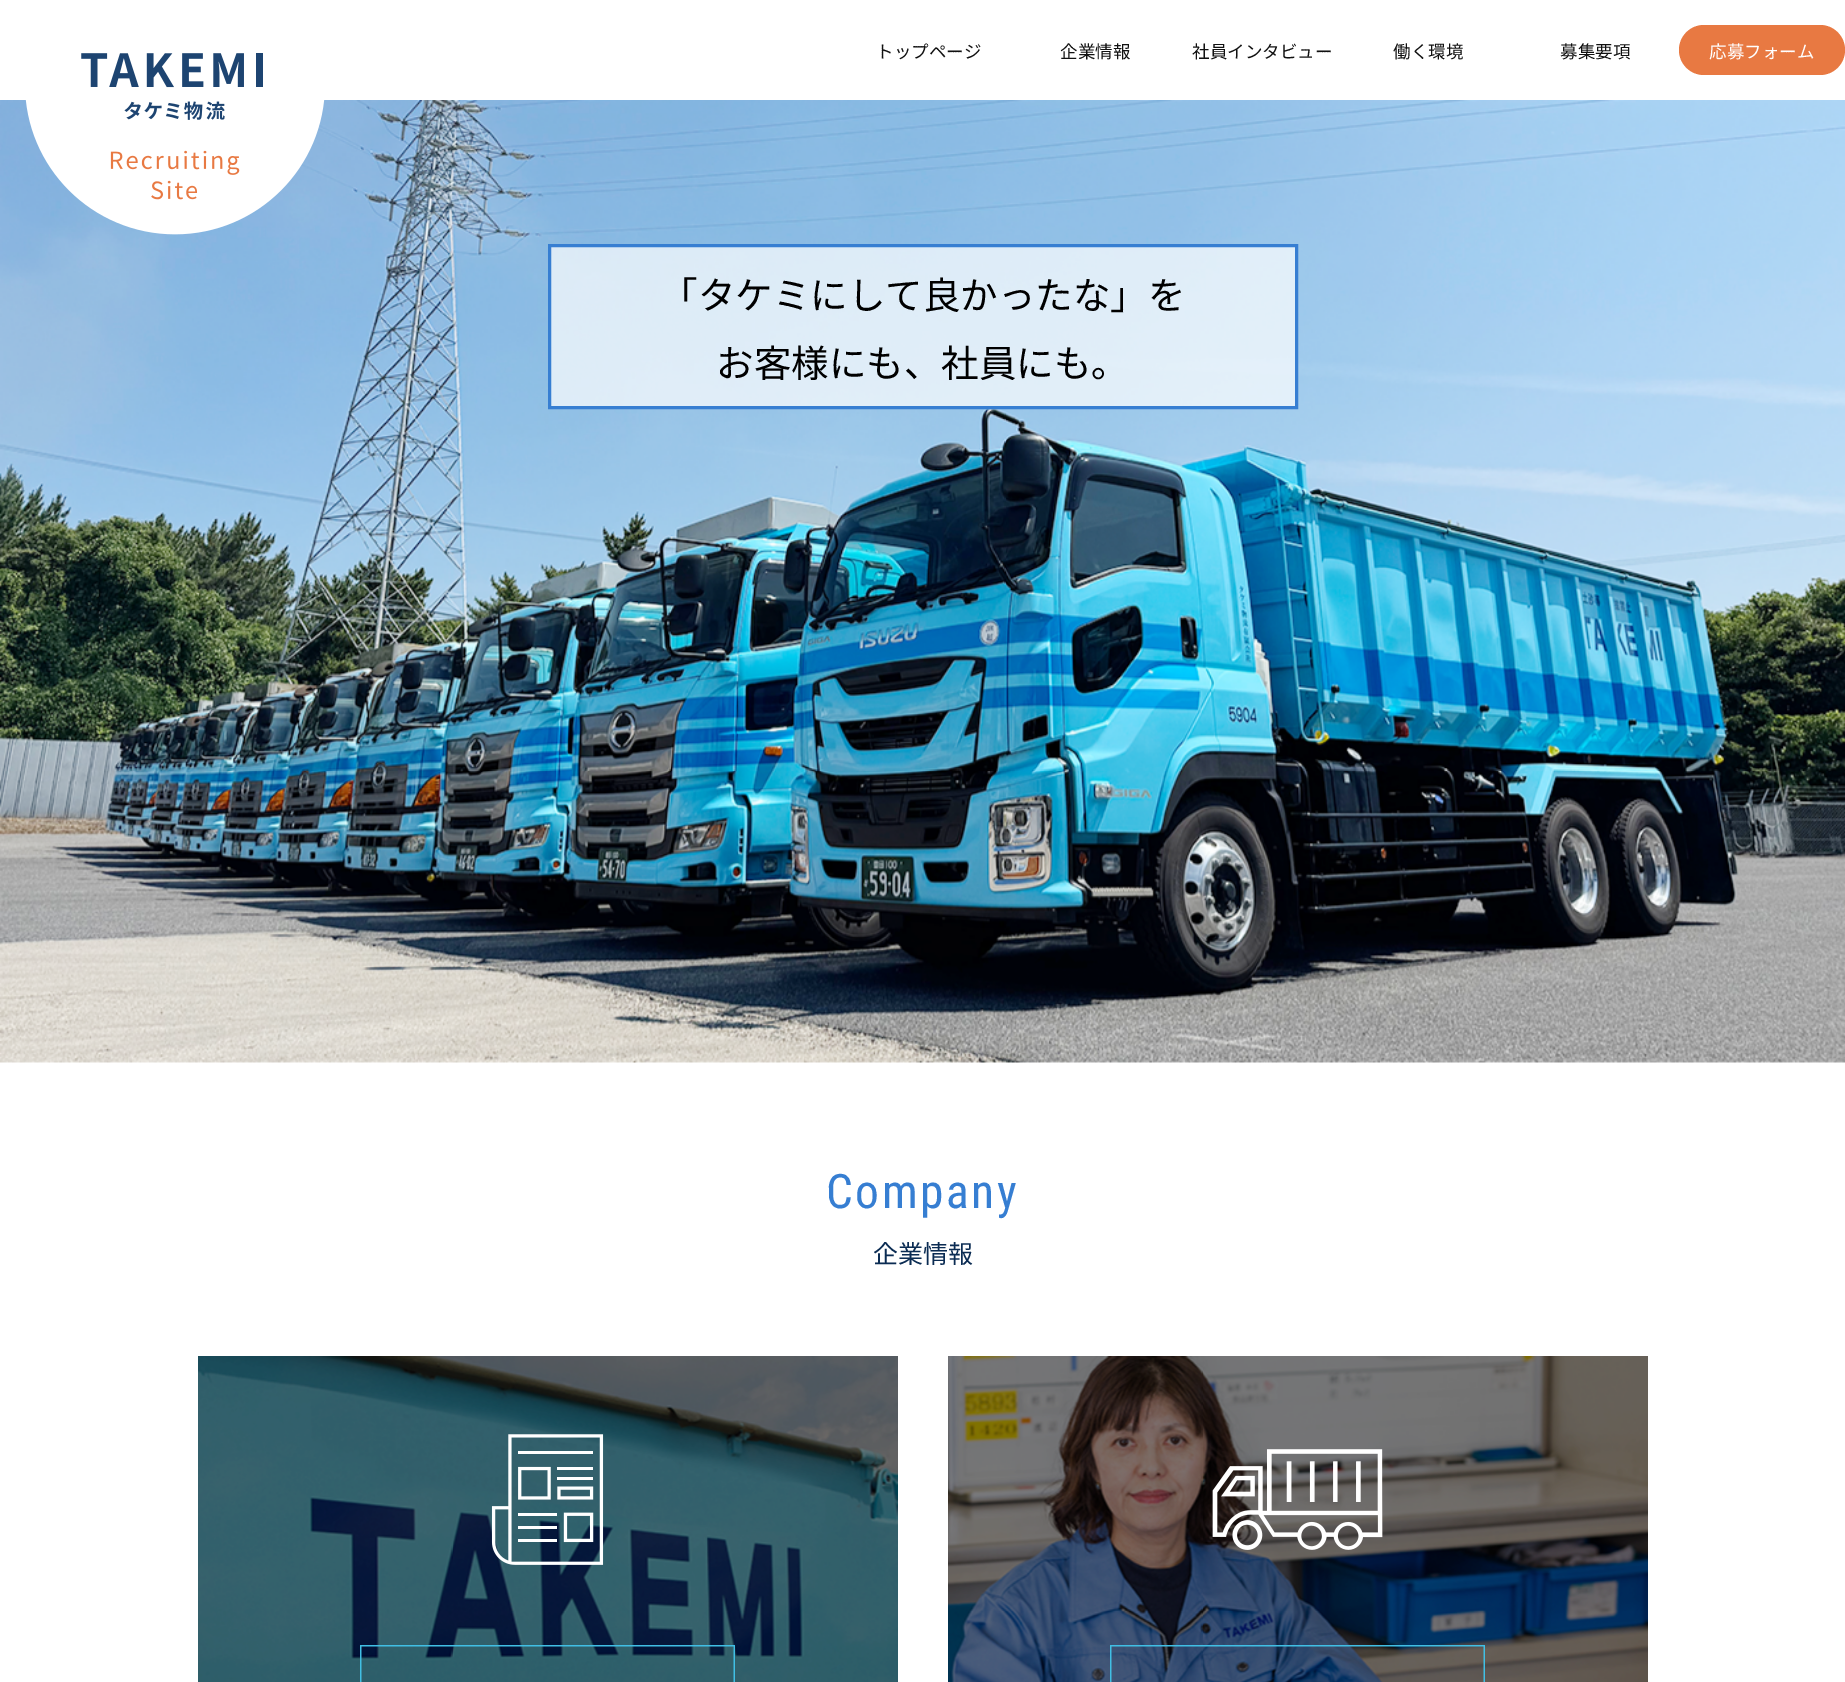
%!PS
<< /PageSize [1845 1682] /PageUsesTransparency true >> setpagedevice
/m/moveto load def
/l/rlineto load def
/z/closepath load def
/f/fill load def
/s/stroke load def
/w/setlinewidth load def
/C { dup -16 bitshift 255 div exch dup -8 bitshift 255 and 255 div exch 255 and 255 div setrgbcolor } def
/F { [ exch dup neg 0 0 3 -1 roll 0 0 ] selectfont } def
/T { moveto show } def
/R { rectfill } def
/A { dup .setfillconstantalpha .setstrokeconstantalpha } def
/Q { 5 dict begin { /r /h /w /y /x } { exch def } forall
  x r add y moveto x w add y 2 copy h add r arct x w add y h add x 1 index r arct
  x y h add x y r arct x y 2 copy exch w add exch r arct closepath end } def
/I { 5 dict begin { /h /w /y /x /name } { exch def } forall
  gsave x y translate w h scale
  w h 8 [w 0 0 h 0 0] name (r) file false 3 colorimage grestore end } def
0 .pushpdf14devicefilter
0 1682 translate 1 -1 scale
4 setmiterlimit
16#FFFFFF C
0 0 1845 1682 R
(2.rgb) 0 100 1845 963 I
(1.rgb) 25 53 300 182 I
/NotoSansJP-Regular 17.5 F
16#111111 C
(トップページ) 876 58 T
(企業情報) 1060 58 T
(社員インタビュー) 1192 58 T
(働く環境) 1393 58 T
(募集要項) 1560 58 T
16#E87942 C
1679 25 166 50 25 Q f
16#FFFFFF C
(応募フォーム) 1709 58 T
0.7 A
549.5 245.5 m 747 0 l 0 162 l -747 0 l z f
1 A
16#367ED2 C
3 w
549.5 245.5 m 747 0 l 0 162 l -747 0 l z s
/NotoSansJP-Regular 37.5 F
16#000000 C
(「タケミにして良かったな」を) 660 309 T
(お客様にも、社員にも。) 716 377 T
/RobotoCondensed-Regular 47.5 F
16#367ED2 C
826 1208 m 2.5 0 (Company) ashow
/NotoSansJP-Regular 25 F
16#0B2C53 C
(企業情報) 873 1263 T
(3.rgb) 198 1356 700 326 I
(4.rgb) 360 1434 375 248 I
(5.rgb) 948 1356 700 326 I
(6.rgb) 1110 1449 375 233 I
.poppdf14devicefilter showpage
